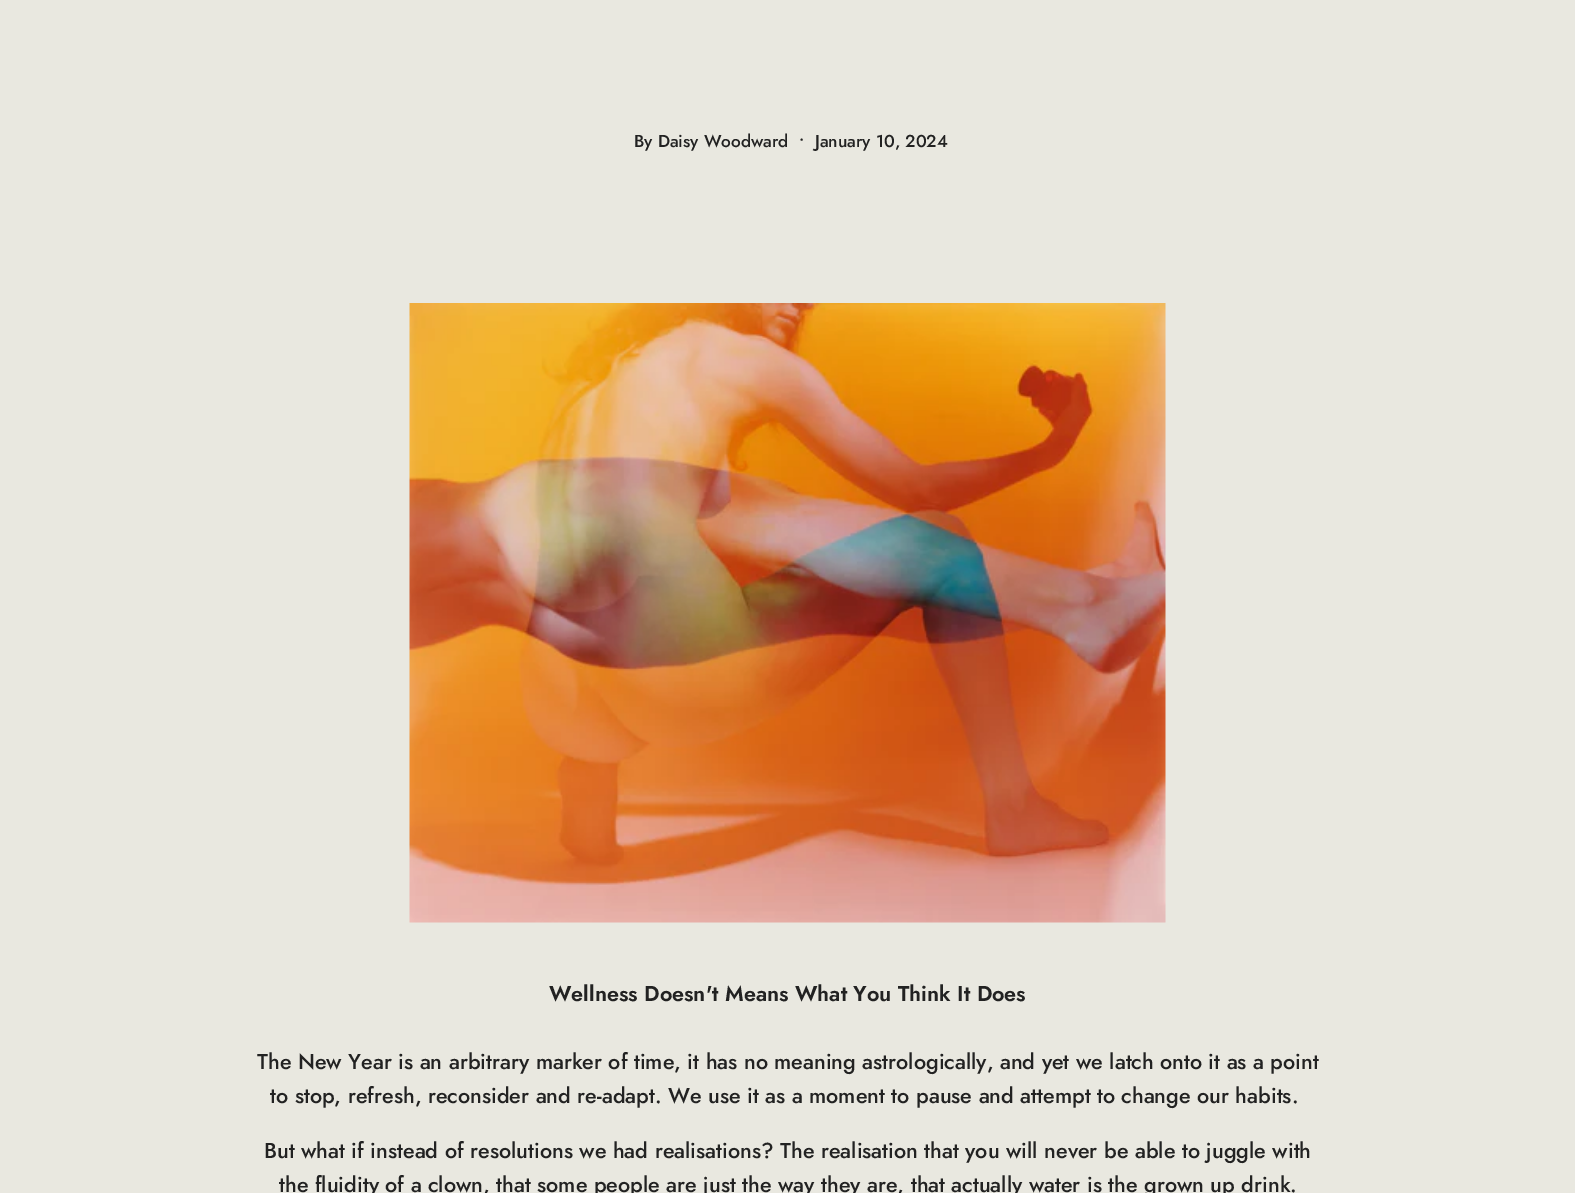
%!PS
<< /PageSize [1575 1193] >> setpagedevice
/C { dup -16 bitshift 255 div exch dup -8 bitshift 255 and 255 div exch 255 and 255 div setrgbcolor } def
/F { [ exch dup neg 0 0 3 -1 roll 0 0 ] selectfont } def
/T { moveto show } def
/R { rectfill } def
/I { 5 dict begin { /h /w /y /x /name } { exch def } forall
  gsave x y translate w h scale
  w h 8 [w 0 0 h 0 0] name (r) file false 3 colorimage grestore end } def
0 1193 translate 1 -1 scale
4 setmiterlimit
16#E9E8E0 C
0 0 1575 1193 R
/Jost-Medium 17.25 F
16#222222 C
(By Daisy Woodward) 634 147 T
(•) 799 147 T
(January 10, 2024) 815 147 T
(1.rgb) 409 303 757 620 I
/Jost-SemiBold 21.6 F
(Wellness Doesn't Means What You Think It Does) 549 1001 T
/Jost-Medium 21.6 F
(The New Year is an arbitrary marker of time, it has no meaning astrologically, and yet we latch onto it as a point) 257 1069 T
(to stop, refresh, reconsider and re-adapt. We use it as a moment to pause and attempt to change our habits.) 270 1103 T
(But what if instead of resolutions we had realisations? The realisation that you will never be able to juggle with) 264 1158 T
(the fluidity of a clown, that some people are just the way they are, that actually water is the grown up drink.) 279 1192 T
showpage
